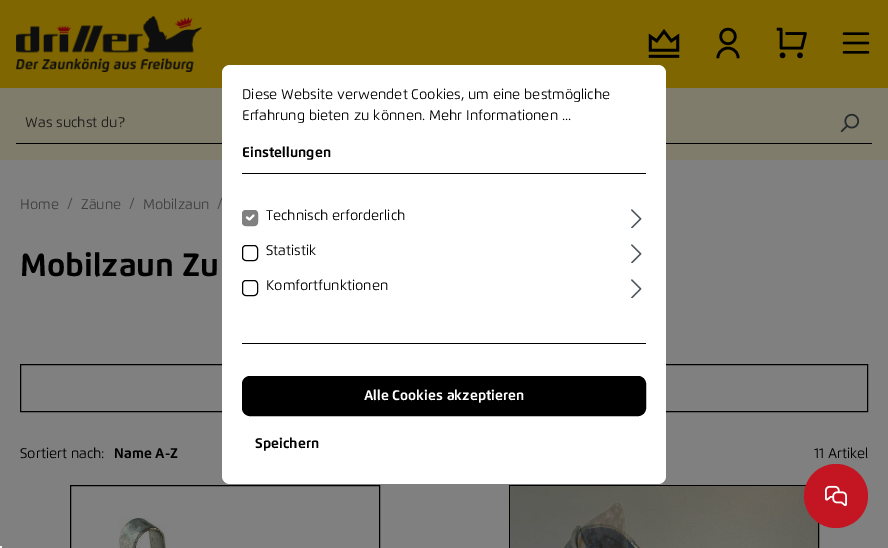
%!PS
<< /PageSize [888 548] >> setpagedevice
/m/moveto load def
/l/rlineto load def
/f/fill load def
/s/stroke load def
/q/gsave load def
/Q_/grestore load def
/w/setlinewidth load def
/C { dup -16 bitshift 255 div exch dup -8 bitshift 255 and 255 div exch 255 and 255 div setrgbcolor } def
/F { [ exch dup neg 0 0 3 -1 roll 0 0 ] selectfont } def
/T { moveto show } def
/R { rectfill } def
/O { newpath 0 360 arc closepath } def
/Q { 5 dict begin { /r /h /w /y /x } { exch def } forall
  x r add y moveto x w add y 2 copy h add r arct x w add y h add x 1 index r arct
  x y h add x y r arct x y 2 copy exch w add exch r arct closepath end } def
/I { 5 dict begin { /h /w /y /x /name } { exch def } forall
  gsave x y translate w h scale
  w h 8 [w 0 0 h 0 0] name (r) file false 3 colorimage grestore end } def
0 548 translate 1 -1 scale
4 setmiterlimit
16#808080 C
0 0 888 548 R
16#7F6601 C
0 0 888 88 R
(1.rgb) 16 16 186 56 I
(2.rgb) 648 29 32 29 I
(3.rgb) 716 27 24 32 I
(4.rgb) 776 27 31 32 I
(5.rgb) 842 32 28 22 I
16#807C6B C
0 88 888 72 R
16#000000 C
16 143 856 1 R
/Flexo-Regular 14 F
16#1A1A1A C
(Was suchst du?) 25 127 T
(6.rgb) 840 113 20 20 I
16#3D4248 C
(/) 217 208 T
16#000000 C
20.5 364.5 847 47 rectstroke
16#FFFFFF C
222 65 444 419 8 Q f
16#000000 C
242 173 404 1 R
(Diese Website verwendet Cookies, um eine bestmögliche) 242 99 T
(Erfahrung bieten zu können. Mehr Informationen ...) 242 120 T
/Flexo-Bold 14 F
(Einstellungen) 242 157 T
242 343 404 1 R
16#808080 C
242 210 16 16 4 Q f
16#FFFFFF C
2.1 w
1 setlinecap
1 setlinejoin
247 217.5 m 2.5 2 l 4 -4 l s
16#808080 C
1 w
0 setlinecap
0 setlinejoin
242.5 210.5 15 15 3.5 Q s
/Flexo-Regular 14 F
16#000000 C
(Technisch erforderlich) 266 220 T
(7.rgb) 631 209 11 19 I
242.5 245.5 15 15 3.5 Q s
(Statistik) 266 255 T
(7.rgb) 631 244 11 19 I
242.5 280.5 15 15 3.5 Q s
(Komfortfunktionen) 266 290 T
(7.rgb) 631 279 11 19 I
242.5 376.5 403 39 7.5 Q q f Q_
s
/Flexo-Bold 14 F
16#FFFFFF C
(Alle Cookies akzeptieren) 364 400 T
16#000000 C
(Speichern) 255 448 T
/Flexo-Regular 14 F
16#404040 C
(Home) 20 209 T
16#3D4248 C
(/) 67 208 T
16#404040 C
(Zäune) 81 209 T
16#3D4248 C
(/) 129 208 T
16#404040 C
(Mobilzaun) 143 209 T
/Flexo-Bold 32 F
16#000000 C
(Mobilzaun Zu) 20 276 T
/Flexo-Regular 14 F
(Sortiert nach:) 20 458 T
/Flexo-Bold 14 F
(Name A-Z) 114 458 T
/Flexo-Regular 14 F
(11 Artikel) 814 458 T
70.5 485.5 309 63 rectstroke
(8.rgb) 118 517 49 31 I
509.5 485.5 309 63 rectstroke
(9.rgb) 510 486 308 62 I
16#C31622 C
836 496 32 O f
(10.rgb) 825 485 22 22 I
16#F5F5F5 C
0 546 2 2 R
showpage
